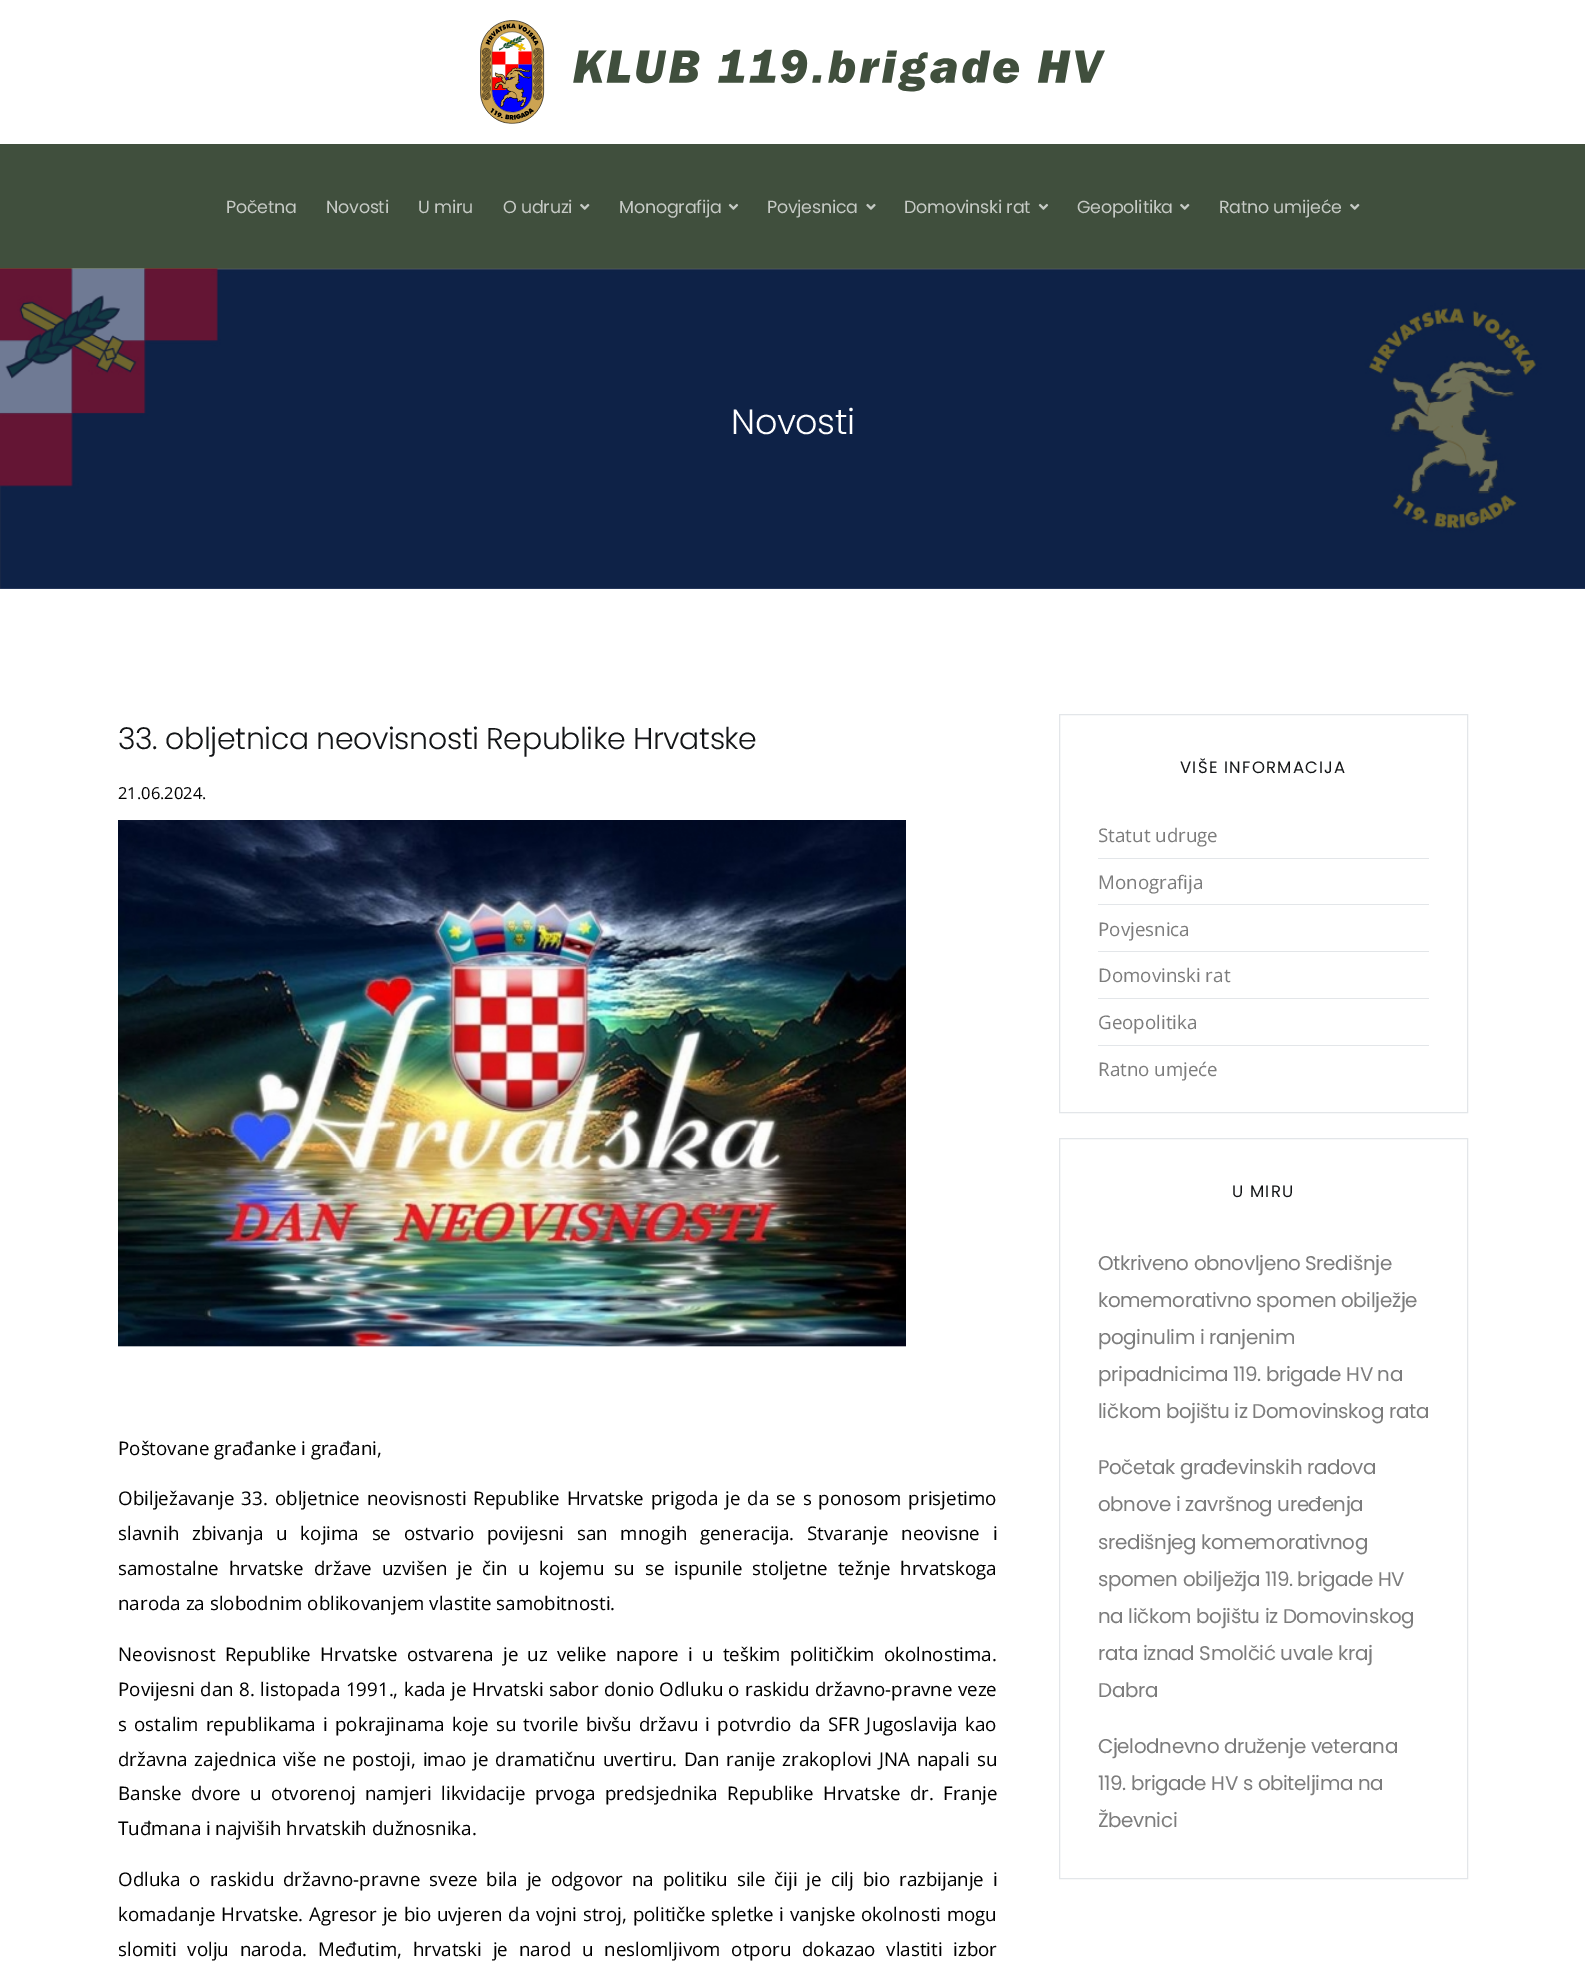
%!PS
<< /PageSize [1585 1962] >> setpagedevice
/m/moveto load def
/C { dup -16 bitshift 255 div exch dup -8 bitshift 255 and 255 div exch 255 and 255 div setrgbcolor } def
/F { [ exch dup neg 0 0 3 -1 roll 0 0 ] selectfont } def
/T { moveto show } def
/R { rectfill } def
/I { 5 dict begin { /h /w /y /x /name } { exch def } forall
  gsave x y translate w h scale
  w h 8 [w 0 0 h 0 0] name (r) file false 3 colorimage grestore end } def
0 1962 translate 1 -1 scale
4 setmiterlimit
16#FFFFFF C
0 0 1585 1962 R
(1.rgb) 480 20 625 104 I
16#404F3D C
0 144 1585 125 R
/Poppins-Regular 17.5 F
16#C6CAC5 C
226 213 m -.25 0 (Početna) ashow
326 213 m -.25 0 (Novosti) ashow
418 213 m -.25 0 (U miru) ashow
503 213 m -.25 0 (O udruzi) ashow
(2.rgb) 580 203 10 7 I
619 213 m -.25 0 (Monografija) ashow
(3.rgb) 728 203 11 7 I
767 213 m -.25 0 (Povjesnica) ashow
(4.rgb) 866 203 10 7 I
904 213 m -.25 0 (Domovinski rat) ashow
(3.rgb) 1038 203 11 7 I
1077 213 m -.25 0 (Geopolitika) ashow
(2.rgb) 1180 203 10 7 I
1219 213 m -.25 0 (Ratno umijeće) ashow
(2.rgb) 1350 203 10 7 I
(5.rgb) 0 268 1585 321 I
/Poppins-Light 35 F
16#FFFFFF C
731 434 m -.4 0 (Novosti) ashow
/Poppins-Light 30 F
16#131517 C
118 749 m -.4 0 (33. obljetnica neovisnosti Republike Hrvatske) ashow
/OpenSans-Regular 16.5 F
16#000000 C
(21.06.2024.) 118 799 T
(6.rgb) 118 820 788 527 I
/OpenSans-Regular 18.75 F
(Poštovane građanke i građani,) 118 1455 T
118 1505 m 2.1 0 32 (Obilježavanje 33. obljetnice neovisnosti Republike Hrvatske prigoda je da se s ponosom prisjetimo) widthshow
118 1540 m 7.9 0 32 (slavnih zbivanja u kojima se ostvario povijesni san mnogih generacija. Stvaranje neovisne i) widthshow
118 1575 m 5.1 0 32 (samostalne hrvatske države uzvišen je čin u kojemu su se ispunile stoljetne težnje hrvatskoga) widthshow
(naroda za slobodnim oblikovanjem vlastite samobitnosti.) 118 1610 T
118 1661 m 4.4 0 32 (Neovisnost Republike Hrvatske ostvarena je uz velike napore i u teškim političkim okolnostima.) widthshow
118 1696 m .5 0 32 (Povijesni dan 8. listopada 1991., kada je Hrvatski sabor donio Odluku o raskidu državno-pravne veze) widthshow
118 1731 m 2.4 0 32 (s ostalim republikama i pokrajinama koje su tvorile bivšu državu i potvrdio da SFR Jugoslavija kao) widthshow
118 1766 m 1.9 0 32 (državna zajednica više ne postoji, imao je dramatičnu uvertiru. Dan ranije zrakoplovi JNA napali su) widthshow
118 1800 m 4.5 0 32 (Banske dvore u otvorenoj namjeri likvidacije prvoga predsjednika Republike Hrvatske dr. Franje) widthshow
(Tuđmana i najviših hrvatskih dužnosnika.) 118 1835 T
118 1886 m 4 0 32 (Odluka o raskidu državno-pravne sveze bila je odgovor na politiku sile čiji je cilj bio razbijanje i) widthshow
118 1921 m .75 0 32 (komadanje Hrvatske. Agresor je bio uvjeren da vojni stroj, političke spletke i vanjske okolnosti mogu) widthshow
118 1956 m 5.9 0 32 (slomiti volju naroda. Međutim, hrvatski je narod u neslomljivom otporu dokazao vlastiti izbor) widthshow
16#E3E6E9 C
1059.5 714.5 408 398 rectstroke
/Poppins-Regular 16.5 F
16#131517 C
1180 773 m 1.25 0 (VIŠE INFORMACIJA) ashow
16#E3E6E9 C
1098 858 331 1 R
/OpenSans-Regular 18.75 F
16#7C7C7C C
(Statut udruge) 1098 842 T
16#E3E6E9 C
1098 904 331 1 R
16#7C7C7C C
(Monografija) 1098 889 T
16#E3E6E9 C
1098 951 331 1 R
16#7C7C7C C
(Povjesnica) 1098 936 T
16#E3E6E9 C
1098 998 331 1 R
16#7C7C7C C
(Domovinski rat) 1098 982 T
16#E3E6E9 C
1098 1045 331 1 R
16#7C7C7C C
(Geopolitika) 1098 1029 T
(Ratno umjeće) 1098 1076 T
16#E3E6E9 C
1059.5 1138.5 408 740 rectstroke
/Poppins-Regular 16.5 F
16#131517 C
1232 1197 m 1.25 0 (U MIRU) ashow
/Poppins-Regular 19.9 F
16#7C7C7C C
1098 1270 m -.4 0 (Otkriveno obnovljeno Središnje) ashow
1098 1307 m -.4 0 (komemorativno spomen obilježje) ashow
1098 1344 m -.4 0 (poginulim i ranjenim) ashow
1098 1381 m -.4 0 (pripadnicima 119. brigade HV na) ashow
1098 1418 m -.4 0 (ličkom bojištu iz Domovinskog rata) ashow
1098 1474 m -.4 0 (Početak građevinskih radova) ashow
1098 1511 m -.4 0 (obnove i završnog uređenja) ashow
1098 1549 m -.4 0 (središnjeg komemorativnog) ashow
1098 1586 m -.4 0 (spomen obilježja 119. brigade HV) ashow
1098 1623 m -.4 0 (na ličkom bojištu iz Domovinskog) ashow
1098 1660 m -.4 0 (rata iznad Smolčić uvale kraj) ashow
1098 1697 m -.4 0 (Dabra) ashow
1098 1753 m -.4 0 (Cjelodnevno druženje veterana) ashow
1098 1790 m -.4 0 (119. brigade HV s obiteljima na) ashow
1098 1827 m -.4 0 (Žbevnici) ashow
showpage
